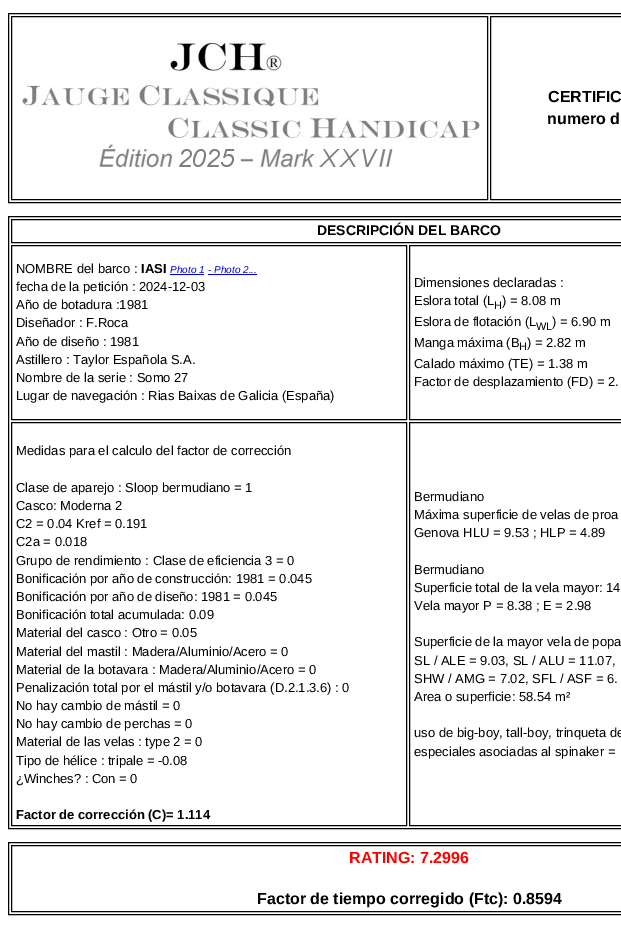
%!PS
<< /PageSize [621 927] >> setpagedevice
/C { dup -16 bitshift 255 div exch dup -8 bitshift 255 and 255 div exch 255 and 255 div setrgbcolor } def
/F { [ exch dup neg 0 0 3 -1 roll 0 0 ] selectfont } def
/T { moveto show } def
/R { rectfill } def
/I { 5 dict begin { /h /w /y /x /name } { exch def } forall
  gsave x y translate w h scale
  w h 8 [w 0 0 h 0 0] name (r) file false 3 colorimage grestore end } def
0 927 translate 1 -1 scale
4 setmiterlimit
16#FFFFFF C
0 0 621 927 R
16#000000 C
8.5 13.5 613 189 rectstroke
11.5 16.5 476 183 rectstroke
(1.rgb) 22 39 458 130 I
490.5 16.5 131 183 rectstroke
/LiberationSans-Bold 16 F
(CERTIFIC) 548 102 T
(numero d) 547 124 T
8.5 216.5 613 612 rectstroke
11.5 219.5 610 23 rectstroke
/LiberationSans-Bold 14 F
(DESCRIPCIÓN DEL BARCO) 317 235 T
11.5 245.5 395 174 rectstroke
/LiberationSans-Regular 13 F
(NOMBRE del barco :) 16 273 T
/LiberationSans-Bold 13 F
(IASI) 141 273 T
/LiberationSans-Italic 10 F
16#0000EE C
(Photo 1) 170 273 T
170 274 34 1 R
(- Photo 2...) 208 273 T
208 274 49 1 R
/LiberationSans-Regular 13 F
16#000000 C
(fecha de la petición : 2024-12-03) 16 291 T
(Año de botadura :1981) 16 309 T
(Diseñador : F.Roca) 16 327 T
(Año de diseño : 1981) 16 346 T
(Astillero : Taylor Española S.A.) 16 364 T
(Nombre de la serie : Somo 27) 16 382 T
(Lugar de navegación : Rias Baixas de Galicia \(España\)) 16 400 T
409.5 245.5 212 174 rectstroke
(Dimensiones declaradas :) 414 287 T
(Eslora total \(L) 414 305 T
/LiberationSans-Regular 11 F
(H) 494 309 T
/LiberationSans-Regular 13 F
(\) = 8.08 m) 502 305 T
(Eslora de flotación \(L) 414 326 T
/LiberationSans-Regular 11 F
(WL) 536 330 T
/LiberationSans-Regular 13 F
(\) = 6.90 m) 552 326 T
(Manga máxima \(B) 414 347 T
/LiberationSans-Regular 11 F
(H) 519 350 T
/LiberationSans-Regular 13 F
(\) = 2.82 m) 527 347 T
(Calado máximo \(TE\) = 1.38 m) 414 368 T
(Factor de desplazamiento \(FD\) = 2.) 414 386 T
11.5 422.5 395 403 rectstroke
(Medidas para el calculo del factor de corrección) 16 455 T
(Clase de aparejo : Sloop bermudiano = 1) 16 492 T
(Casco: Moderna 2) 16 510 T
(C2 = 0.04 Kref = 0.191) 16 528 T
(C2a = 0.018) 16 546 T
(Grupo de rendimiento : Clase de eficiencia 3 = 0) 16 565 T
(Bonificación por año de construcción: 1981 = 0.045) 16 583 T
(Bonificación por año de diseño: 1981 = 0.045) 16 601 T
(Bonificación total acumulada: 0.09) 16 619 T
(Material del casco : Otro = 0.05) 16 637 T
(Material del mastil : Madera/Aluminio/Acero = 0) 16 656 T
(Material de la botavara : Madera/Aluminio/Acero = 0) 16 674 T
(Penalización total por el mástil y/o botavara \(D.2.1.3.6\) : 0) 16 692 T
(No hay cambio de mástil = 0) 16 710 T
(No hay cambio de perchas = 0) 16 728 T
(Material de las velas : type 2 = 0) 16 746 T
(Tipo de hélice : tripale = -0.08) 16 765 T
(¿Winches? : Con = 0) 16 783 T
/LiberationSans-Bold 13 F
(Factor de corrección \(C\)= 1.114) 16 819 T
409.5 422.5 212 403 rectstroke
/LiberationSans-Regular 13 F
(Bermudiano) 414 501 T
(Máxima superficie de velas de proa) 414 519 T
(Genova HLU = 9.53 ; HLP = 4.89) 414 537 T
(Bermudiano) 414 574 T
(Superficie total de la vela mayor: 14) 414 592 T
(Vela mayor P = 8.38 ; E = 2.98) 414 610 T
(Superficie de la mayor vela de popa) 414 646 T
(SL / ALE = 9.03, SL / ALU = 11.07,) 414 665 T
(SHW / AMG = 7.02, SFL / ASF = 6.) 414 683 T
(Area o superficie: 58.54 m²) 414 701 T
(uso de big-boy, tall-boy, trinqueta de) 414 737 T
(especiales asociadas al spinaker =) 414 756 T
8.5 842.5 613 72 rectstroke
11.5 845.5 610 66 rectstroke
/LiberationSans-Bold 16 F
16#FF0000 C
(RATING: 7.2996) 349 863 T
16#000000 C
(Factor de tiempo corregido \(Ftc\): 0.8594) 257 904 T
showpage
